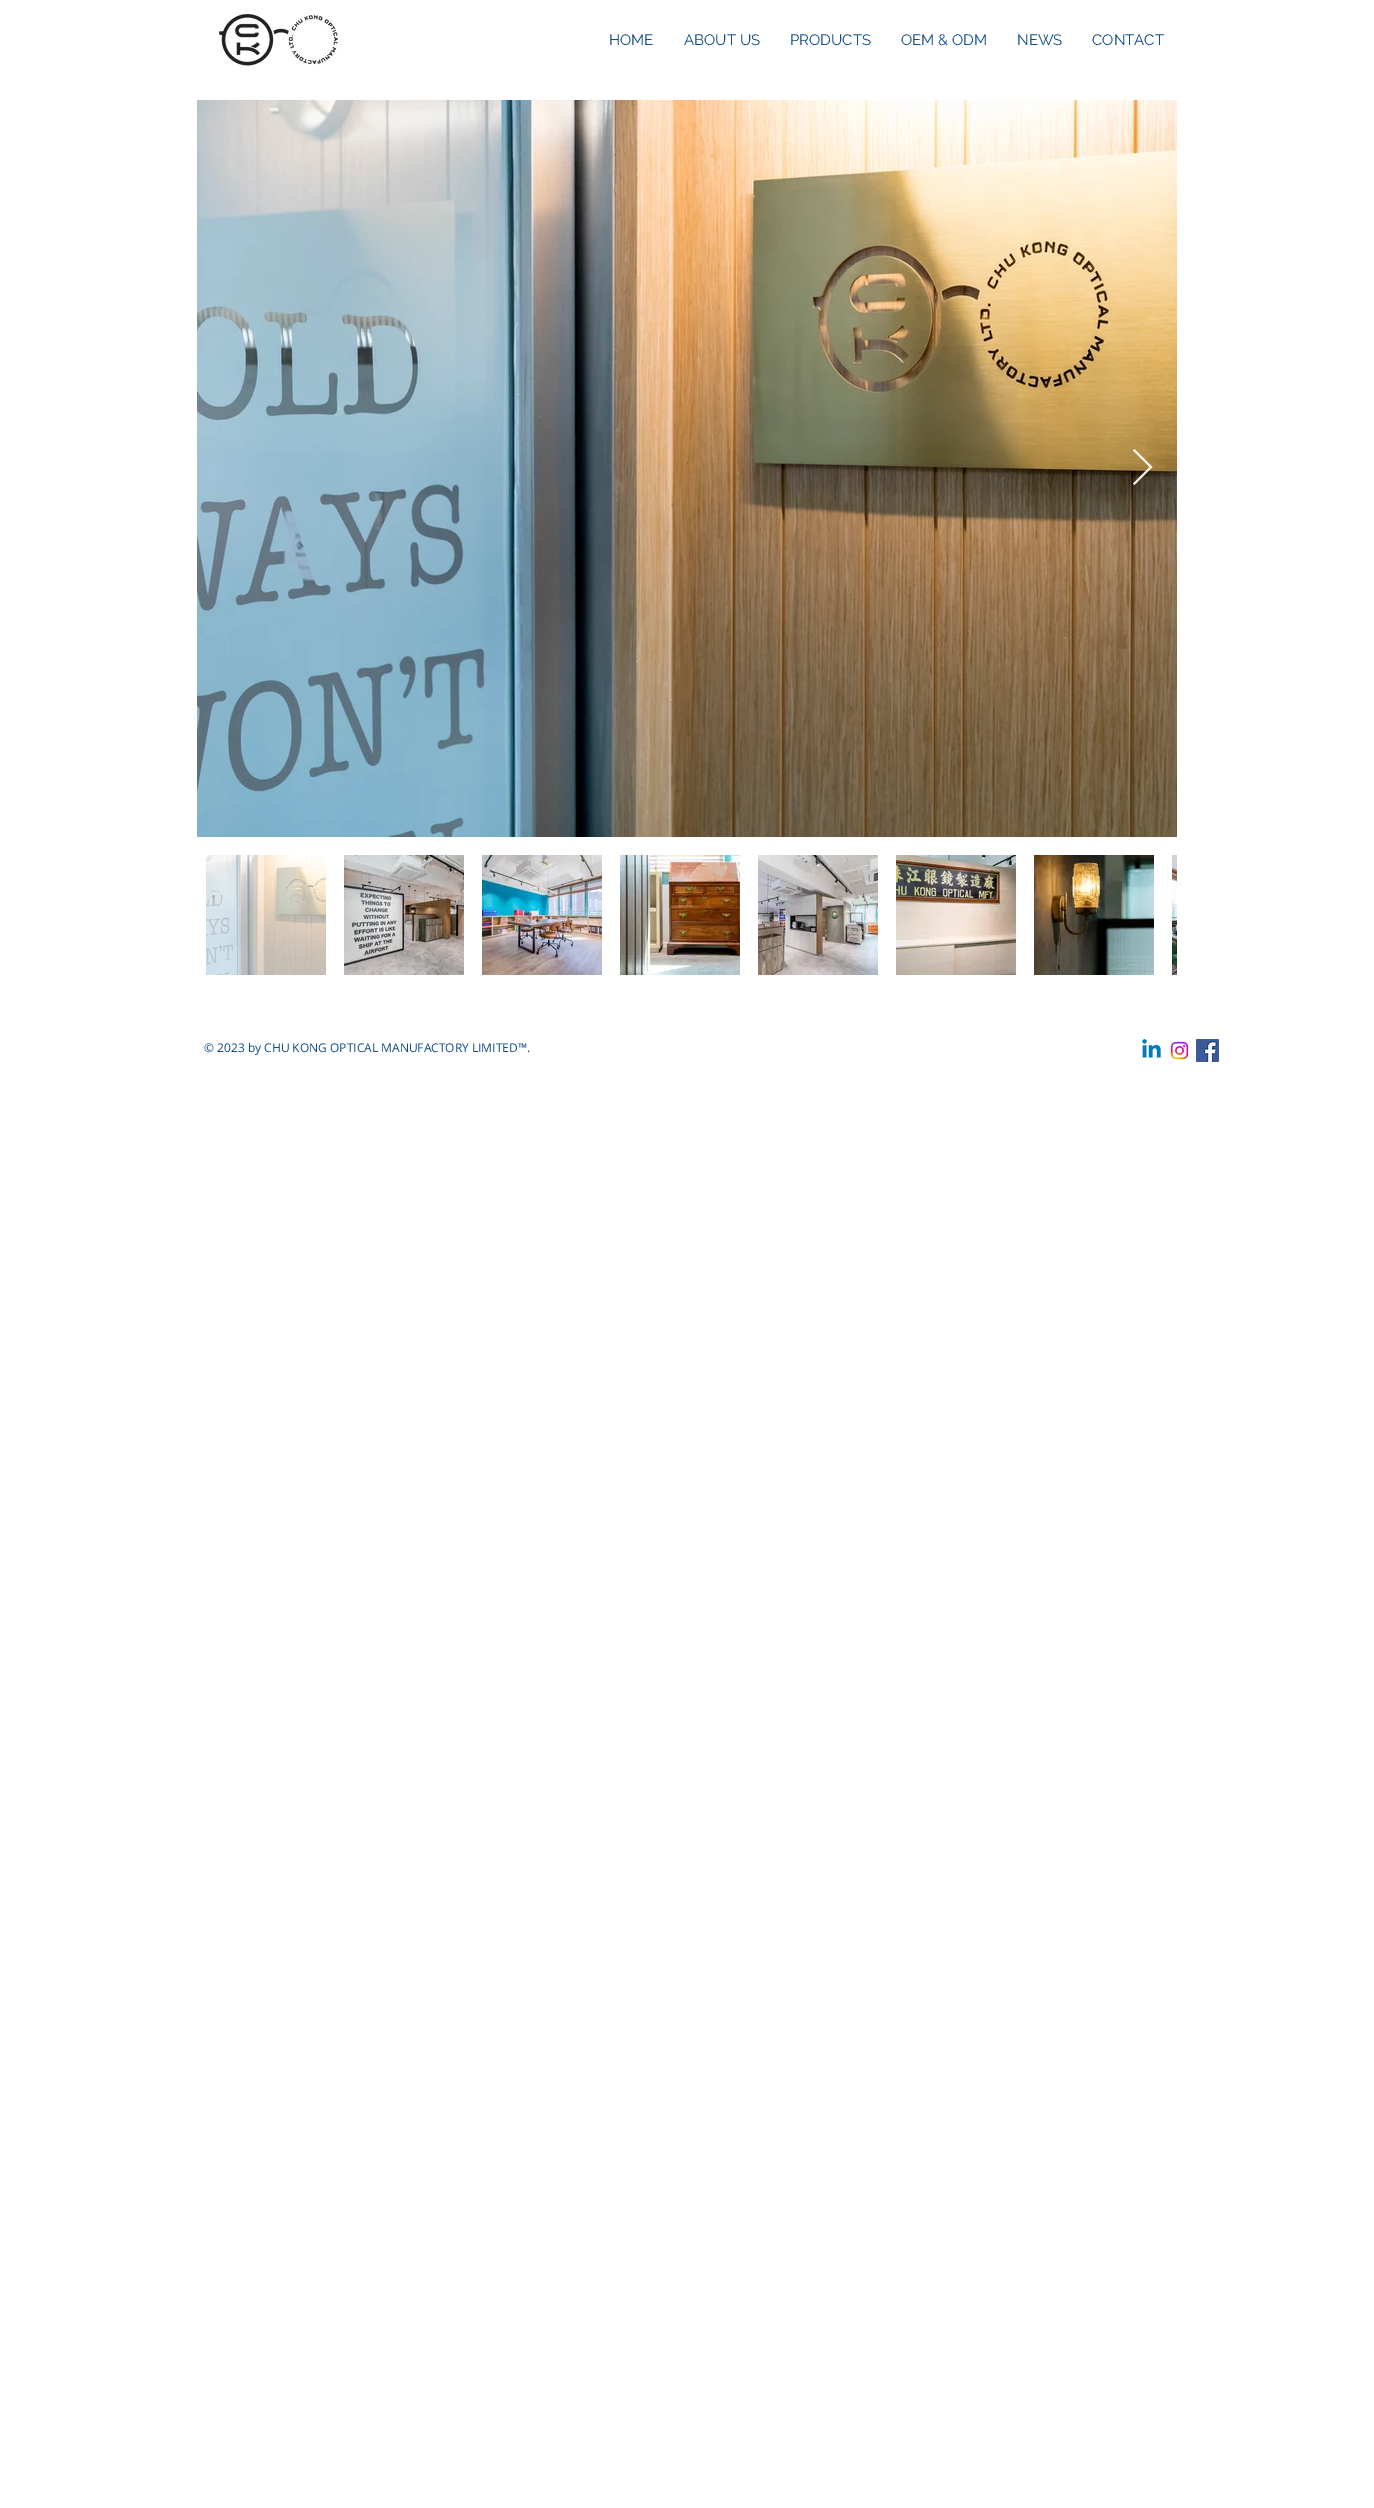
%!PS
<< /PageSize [1374 2508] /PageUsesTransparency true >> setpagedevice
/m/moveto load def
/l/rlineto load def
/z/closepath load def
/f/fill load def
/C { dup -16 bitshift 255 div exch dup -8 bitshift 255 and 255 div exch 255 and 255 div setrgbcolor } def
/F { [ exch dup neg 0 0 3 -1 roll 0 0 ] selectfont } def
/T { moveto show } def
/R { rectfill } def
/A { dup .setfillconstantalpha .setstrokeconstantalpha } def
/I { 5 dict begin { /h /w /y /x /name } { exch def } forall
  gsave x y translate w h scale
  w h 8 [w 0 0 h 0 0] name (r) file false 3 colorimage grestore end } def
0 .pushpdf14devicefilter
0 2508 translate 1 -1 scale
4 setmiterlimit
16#FFFFFF C
0 0 1374 2508 R
(1.rgb) 219 13 119 53 I
/Raleway-Regular 15 F
16#0F4C85 C
(HOME) 609 45 T
(ABOUT US) 684 45 T
(PRODUCTS) 790 45 T
(OEM & ODM) 901 45 T
(NEWS) 1017 45 T
(CONTACT) 1092 45 T
(2.rgb) 197 100 980 737 I
0.9 A
16#FFFFFF C
1133 450.5 m 1.5 -1.5 l 18 18 l -18 18 l -1.5 -1.5 l 16.5 -16.5 l z f
1 A
(3.rgb) 206 855 120 120 I
(4.rgb) 344 855 120 120 I
(5.rgb) 482 855 120 120 I
(6.rgb) 620 855 120 120 I
(7.rgb) 758 855 120 120 I
(8.rgb) 896 855 120 120 I
(9.rgb) 1034 855 120 120 I
(10.rgb) 1172 855 5 120 I
/OpenSans-Regular 12 F
16#0F4C85 C
(© 2023 by CHU KONG OPTICAL MANUFACTORY LIMITED™.) 204 1052 T
(11.rgb) 1142 1039 19 19 I
(12.rgb) 1170 1041 19 19 I
(13.rgb) 1196 1039 23 23 I
.poppdf14devicefilter showpage
